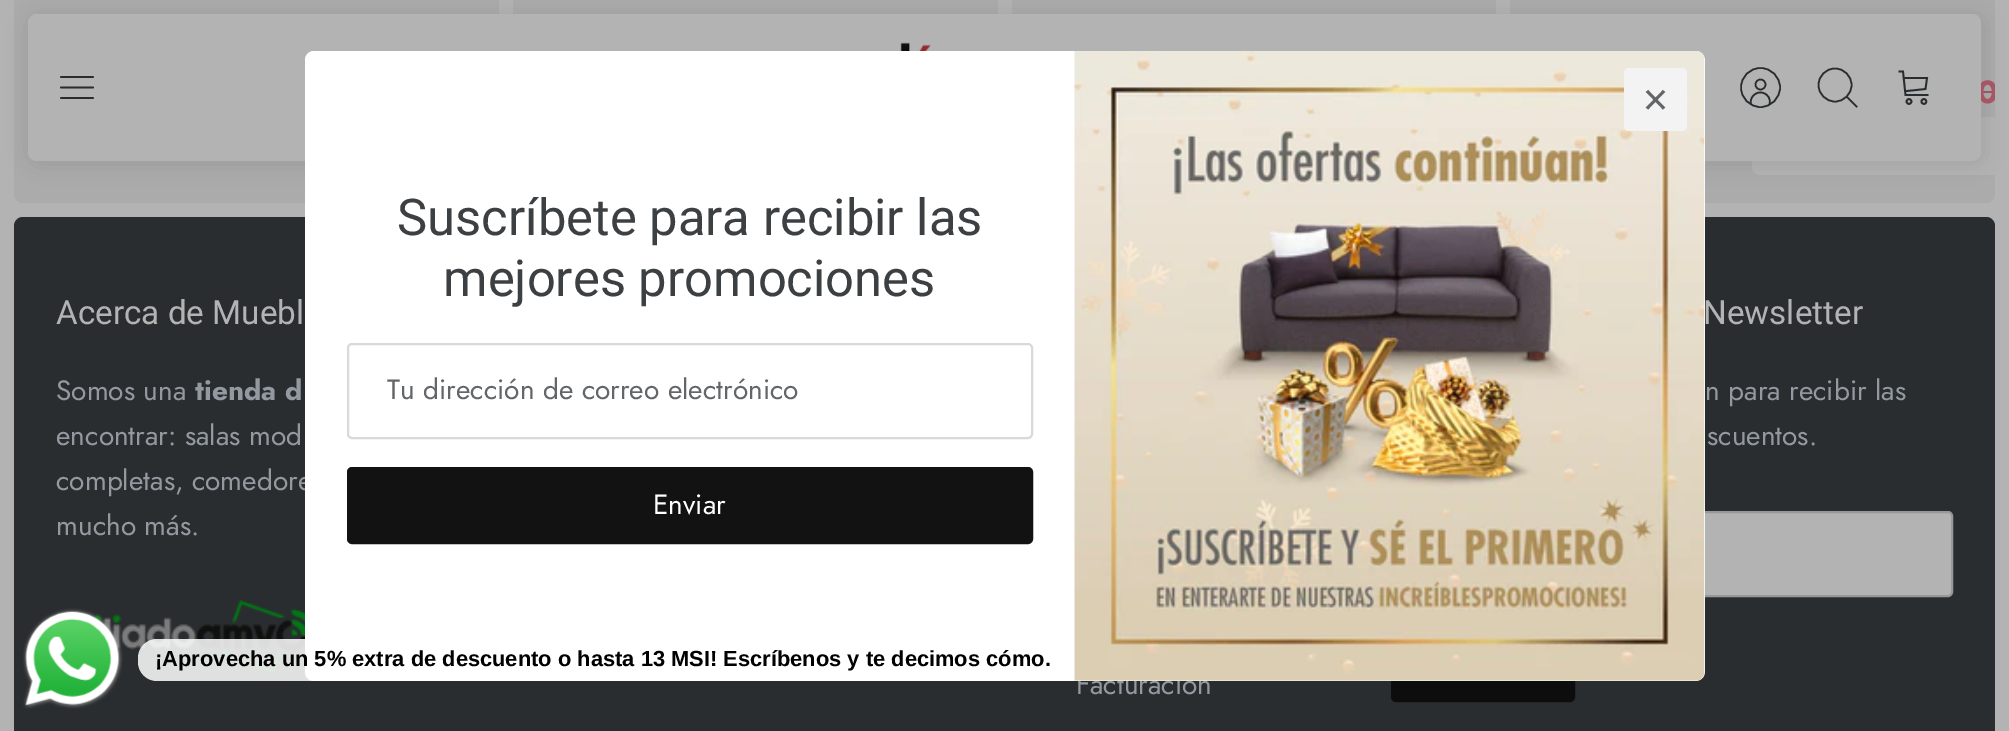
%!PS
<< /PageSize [2009 731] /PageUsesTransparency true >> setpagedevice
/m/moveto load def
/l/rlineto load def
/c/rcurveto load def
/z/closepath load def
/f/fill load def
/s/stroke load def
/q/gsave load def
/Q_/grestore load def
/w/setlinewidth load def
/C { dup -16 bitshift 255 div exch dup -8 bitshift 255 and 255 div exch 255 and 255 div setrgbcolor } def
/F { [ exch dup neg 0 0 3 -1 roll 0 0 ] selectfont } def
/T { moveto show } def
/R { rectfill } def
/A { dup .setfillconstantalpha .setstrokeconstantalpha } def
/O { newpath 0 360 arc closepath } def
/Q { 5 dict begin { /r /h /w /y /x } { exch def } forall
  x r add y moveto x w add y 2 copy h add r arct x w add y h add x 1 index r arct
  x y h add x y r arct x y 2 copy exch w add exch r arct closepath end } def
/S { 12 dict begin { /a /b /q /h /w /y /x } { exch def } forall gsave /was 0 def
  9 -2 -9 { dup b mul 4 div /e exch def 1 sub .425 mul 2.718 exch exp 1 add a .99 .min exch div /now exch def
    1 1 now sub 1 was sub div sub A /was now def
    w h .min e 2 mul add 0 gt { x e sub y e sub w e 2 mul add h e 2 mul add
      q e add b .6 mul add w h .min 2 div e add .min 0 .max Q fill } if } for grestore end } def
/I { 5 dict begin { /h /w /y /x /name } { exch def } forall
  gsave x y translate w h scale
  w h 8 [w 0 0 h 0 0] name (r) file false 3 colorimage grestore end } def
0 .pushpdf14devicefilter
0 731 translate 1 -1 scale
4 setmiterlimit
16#B3B3B3 C
0 0 2009 731 R
16#ABABAB C
14 -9 485 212 9 Q f
513 0 485 14 R
1012 0 484 14 R
1510 -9 485 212 9 Q f
16#A75564 C
1981 91 14 2 R
16#B3B3B3 C
1761 117 m 234 0 l 0 58 l -234 0 l -5 0 -9 -4 -9 -9 c 0 -40 l 0 -5 4 -9 9 -9 c z f
16#000000 C
30 16 1953 147 9 10.5 .1 S
q
1510 -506 485 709 9 Q clip newpath
/Jost-Bold 32 F
16#A75564 C
(0) 1977 103 T
Q_
16#B3B3B3 C
28 14 1953 147 9 Q f
(1.rgb) 900 42 31 9 I
16#2A2D2F C
1.8 w
1 setlinecap
1 setlinejoin
61 87.5 m 32 0 l 61 77 m 32 0 l 61 98 m 32 0 l s
1.6 w
0 setlinecap
0 setlinejoin
1769.5 104.5 m 3 -11 -12 -17 -17.5 -7 c -1.5 2 -1.5 4.5 -1 7 c s
1760.5 84.5 5 O s
1760.5 87.5 19.5 O s
1835 85 16.5 O s
2 setlinecap
1847 97 m 9.5 9.5 l s
1.8 w
1899.5 71.5 m 3.5 0 l 2.5 23.5 l 22 0 l 1904.5 78 m 22.5 0 l -1.5 11 l -18.5 2 l s
0 setlinecap
1909 101.5 2.4 O s
1923.9 101.5 2.4 O s
14 217 1981 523 9 Q f
/Jost-Regular 28 F
16#9399A0 C
(completas, comedore) 56 490 T
16#B3B3B3 C
1392 512 560 84 4 Q q f Q_
16#979899 C
2 w
s
16#0D0D0D C
1392 626 182 75 4 Q q f Q_
s
16#9399A0 C
(Facturación) 1076 694 T
16#FFFFFF C
305 51 1400 630 9 Q f
(2.rgb) 1074 51 631 630 I
16#F3F3F3 C
1624 68 63 63 5 Q f
16#636669 C
2.9 w
1664 91 m -17 17.5 l 1647 91 m 17 17.5 l s
/Roboto-Regular 50.75 F
16#3C4043 C
(Suscríbete para recibir las) 397 235 T
(mejores promociones) 443 296 T
16#D8D9DA C
2 w
348 344 684 94 4 Q s
/Jost-Regular 28 F
16#636669 C
(Tu dirección de correo electrónico) 387 399 T
16#121212 C
348 468 684 75 4 Q q f Q_
s
16#FFFFFF C
(Enviar) 653 514 T
/Roboto-Regular 33.25 F
16#B3B3B3 C
(Acerca de Muebl) 56 324 T
/Jost-Regular 28 F
16#9399A0 C
(Somos una) 56 400 T
/Jost-Bold 28 F
(tienda d) 195 400 T
/Jost-Regular 28 F
(encontrar: salas mod) 56 445 T
(mucho más.) 56 535 T
(3.rgb) 90 600 215 74 I
/Roboto-Regular 33.25 F
16#B3B3B3 C
(Newsletter) 1703 324 T
/Jost-Regular 28 F
16#9399A0 C
(n para recibir las) 1705 400 T
(scuentos.) 1707 445 T
(4.rgb) 23 608 100 101 I
0.85 A
16#FFFFFF C
138 639 930 42 19 Q f
/LiberationSans-Bold 21.9 F
1 A
16#000000 C
(¡Aprovecha un 5% extra de descuento o hasta 13 MSI! Escríbenos y te decimos cómo.) 155 666 T
.poppdf14devicefilter showpage
